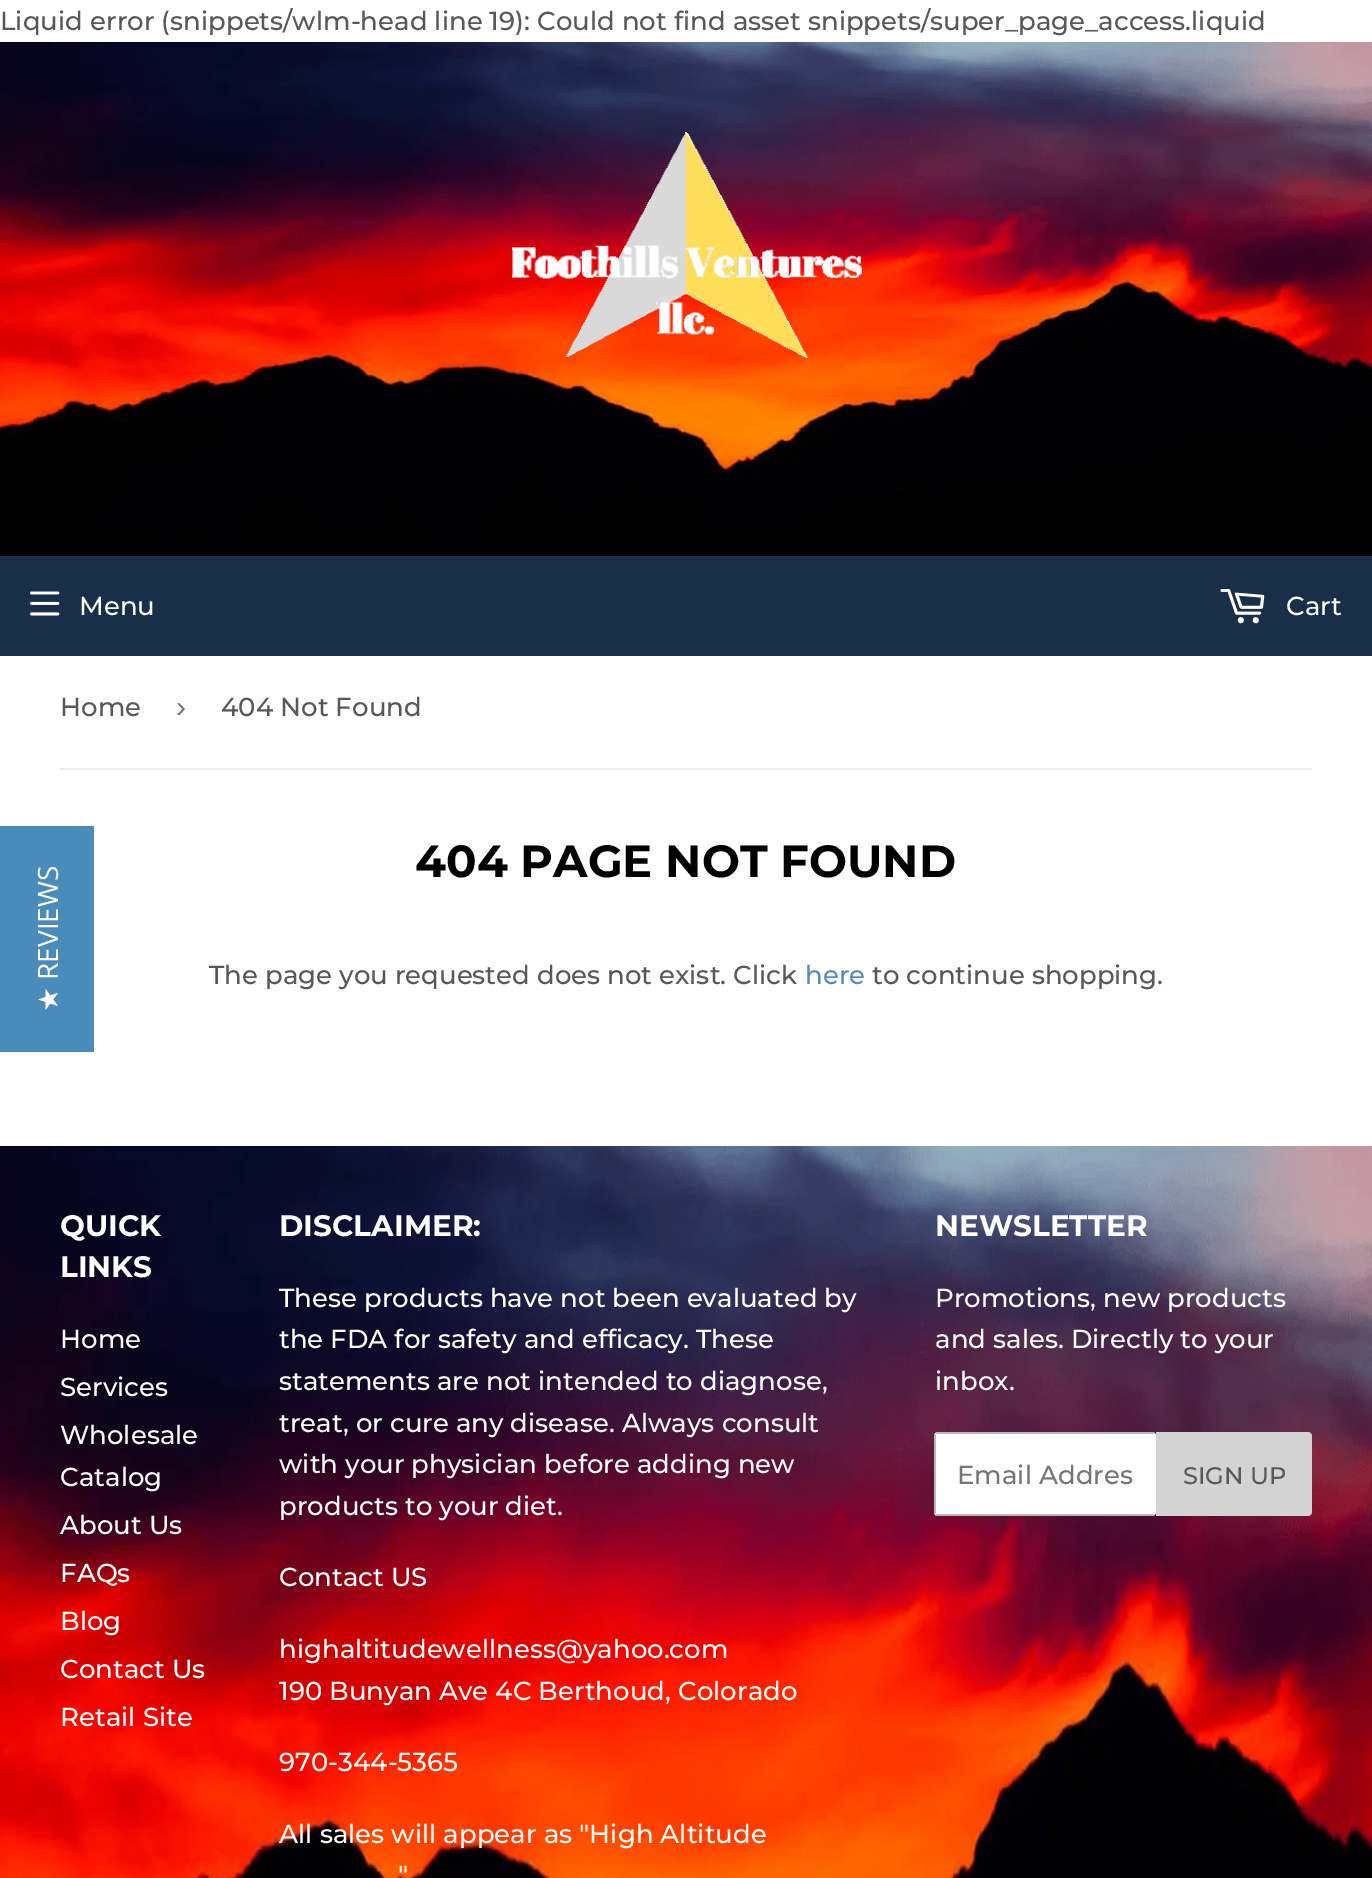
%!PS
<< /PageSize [1372 1878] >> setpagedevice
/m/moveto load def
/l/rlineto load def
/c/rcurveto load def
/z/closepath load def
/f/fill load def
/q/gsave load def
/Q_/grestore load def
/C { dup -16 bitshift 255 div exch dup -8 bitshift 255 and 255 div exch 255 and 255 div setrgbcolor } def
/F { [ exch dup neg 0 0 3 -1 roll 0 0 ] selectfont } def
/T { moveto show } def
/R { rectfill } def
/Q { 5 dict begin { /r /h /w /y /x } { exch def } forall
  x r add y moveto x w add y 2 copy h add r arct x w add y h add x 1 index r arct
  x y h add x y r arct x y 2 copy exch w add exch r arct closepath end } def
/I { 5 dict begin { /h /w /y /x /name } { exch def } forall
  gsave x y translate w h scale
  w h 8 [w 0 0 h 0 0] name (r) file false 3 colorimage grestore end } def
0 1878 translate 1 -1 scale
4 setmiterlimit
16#FFFFFF C
0 0 1372 1878 R
/Montserrat-Medium 26 F
16#585858 C
(Liquid error \(snippets/wlm-head line 19\): Could not find asset snippets/super_page_access.liquid) 0 30 T
(1.rgb) 0 42 1372 514 I
(2.rgb) 512 132 350 226 I
16#182E49 C
0 556 1372 100 R
(3.rgb) 30 591 30 25 I
16#FFFFFF C
(Menu) 79 615 T
(4.rgb) 1220 589 45 35 I
(Cart) 1286 615 T
16#498CBC C
0 826 94 226 R
/OpenSans-Regular 28 F
16#FFFFFF C
q 58 980 translate -90 rotate 0 0 m (REVIEWS) show Q_
/DejaVuSans-Regular 28 F
q 58 1012 translate -90 rotate 0 0 m (★) show Q_
16#ECECEC C
60 768 1252 2 R
/Montserrat-Medium 26 F
16#585858 C
(Home) 60 716 T
/LiberationSans-Regular 30 F
16#767676 C
(›) 176 717 T
/Montserrat-Medium 26 F
16#585858 C
(404 Not Found) 221 716 T
/Montserrat-Bold 45 F
16#000000 C
(404 PAGE NOT FOUND) 415 877 T
/Montserrat-Medium 26 F
16#585858 C
(The page you requested does not exist. Click) 209 984 T
16#528EC1 C
(here) 805 984 T
16#585858 C
(to continue shopping.) 872 984 T
(5.rgb) 0 1146 1372 732 I
/Montserrat-Bold 29.5 F
16#FFFFFF C
(QUICK) 60 1236 T
(LINKS) 60 1277 T
/Montserrat-Medium 26 F
(Home) 60 1348 T
(Services) 60 1396 T
(Wholesale) 60 1444 T
(Catalog) 60 1486 T
(About Us) 60 1534 T
(FAQs) 60 1582 T
(Blog) 60 1630 T
(Contact Us) 60 1678 T
(Retail Site) 60 1726 T
/Montserrat-Bold 29.5 F
(DISCLAIMER:) 279 1236 T
/Montserrat-Medium 26 F
(These products have not been evaluated by) 279 1307 T
(the FDA for safety and efficacy. These) 279 1348 T
(statements are not intended to diagnose,) 279 1390 T
(treat, or cure any disease. Always consult) 279 1432 T
(with your physician before adding new) 279 1473 T
(products to your diet.) 279 1515 T
(Contact US) 279 1586 T
(highaltitudewellness@yahoo.com) 279 1658 T
(190 Bunyan Ave 4C Berthoud, Colorado) 279 1700 T
(970-344-5365) 279 1771 T
(All sales will appear as "High Altitude) 279 1843 T
(") 398 1884 T
/Montserrat-Bold 29.5 F
(NEWSLETTER) 935 1236 T
/Montserrat-Medium 26 F
(Promotions, new products) 935 1307 T
(and sales. Directly to your) 935 1348 T
(inbox.) 935 1390 T
934 1432 222 84 4 Q f
16#B9B9B9 C
936 1432 218 2 R
936 1514 218 2 R
934 1434 2 80 R
16#767676 C
(Email Addres) 957 1484 T
16#D3D3D3 C
1156 1432 m 152 0 l 2 0 4 2 4 4 c 0 76 l 0 2 -2 4 -4 4 c -152 0 l z f
/Montserrat-Medium 24 F
16#585858 C
(SIGN UP) 1183 1484 T
showpage
